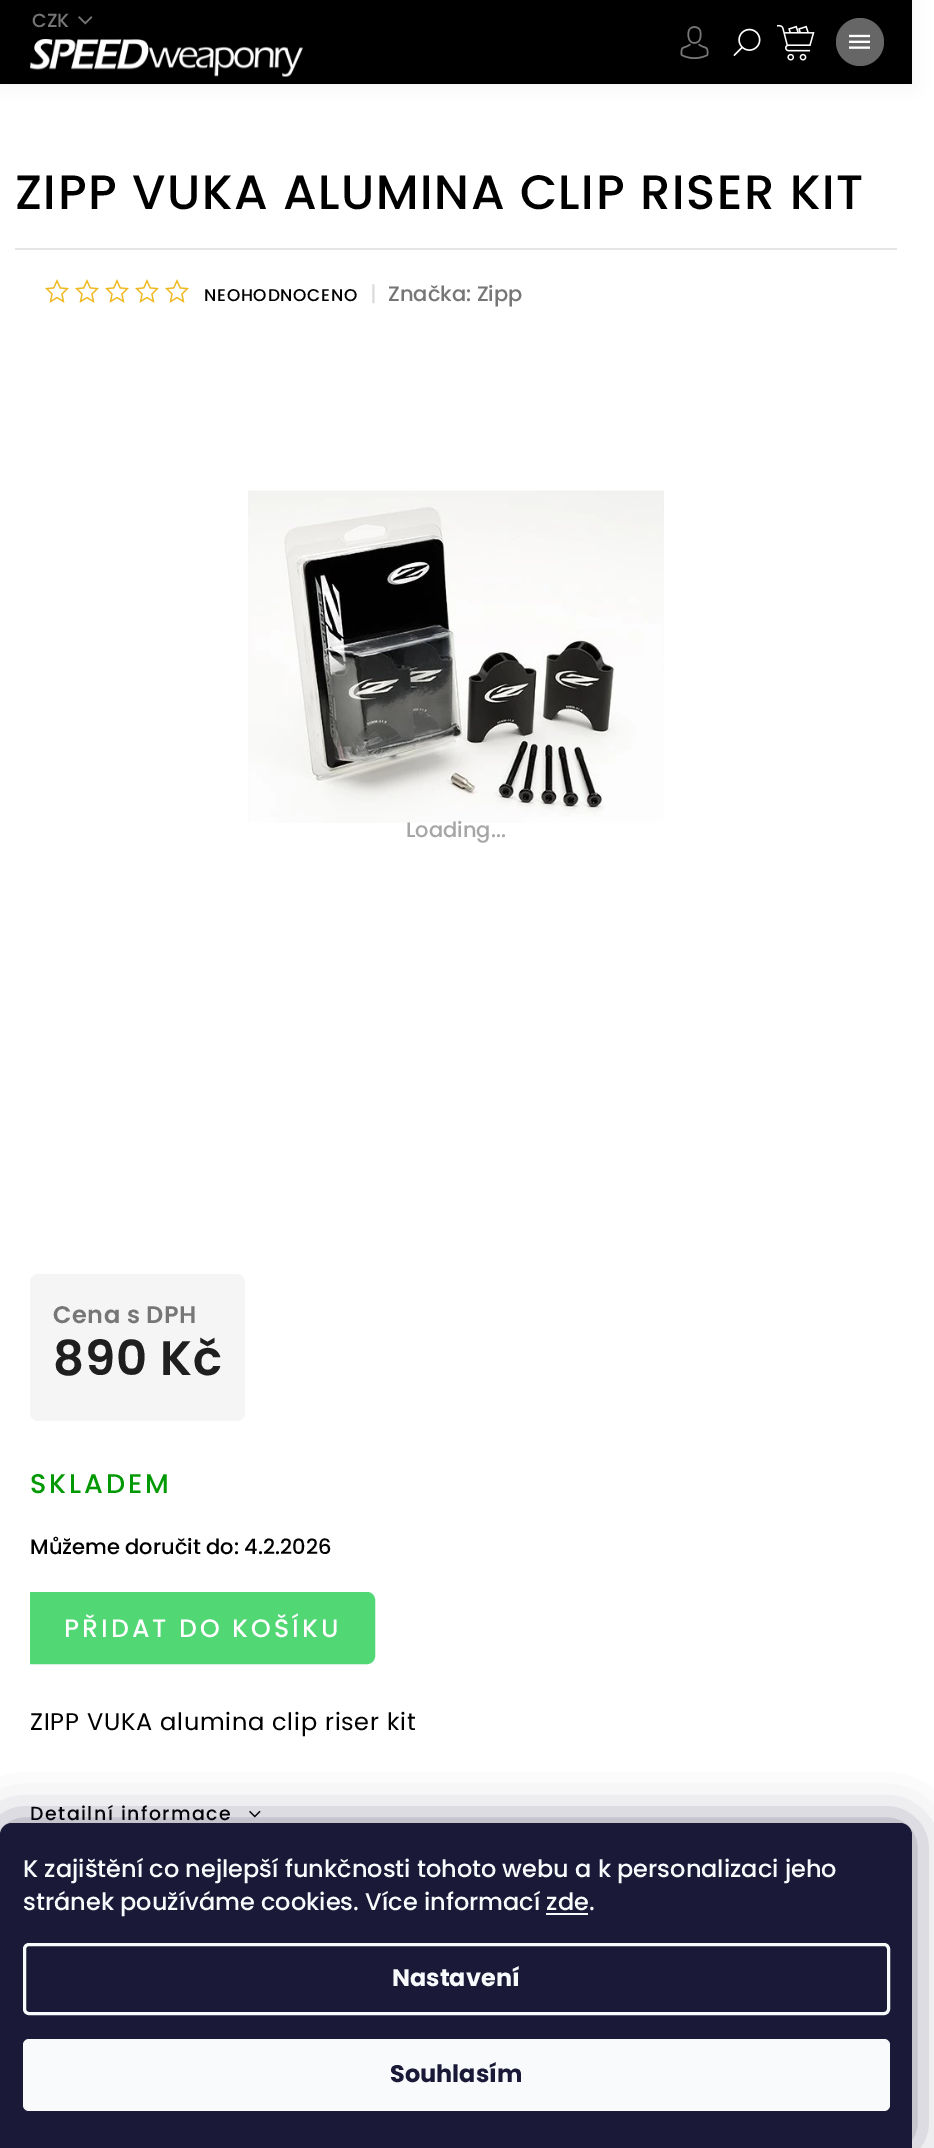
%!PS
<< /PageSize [934 2148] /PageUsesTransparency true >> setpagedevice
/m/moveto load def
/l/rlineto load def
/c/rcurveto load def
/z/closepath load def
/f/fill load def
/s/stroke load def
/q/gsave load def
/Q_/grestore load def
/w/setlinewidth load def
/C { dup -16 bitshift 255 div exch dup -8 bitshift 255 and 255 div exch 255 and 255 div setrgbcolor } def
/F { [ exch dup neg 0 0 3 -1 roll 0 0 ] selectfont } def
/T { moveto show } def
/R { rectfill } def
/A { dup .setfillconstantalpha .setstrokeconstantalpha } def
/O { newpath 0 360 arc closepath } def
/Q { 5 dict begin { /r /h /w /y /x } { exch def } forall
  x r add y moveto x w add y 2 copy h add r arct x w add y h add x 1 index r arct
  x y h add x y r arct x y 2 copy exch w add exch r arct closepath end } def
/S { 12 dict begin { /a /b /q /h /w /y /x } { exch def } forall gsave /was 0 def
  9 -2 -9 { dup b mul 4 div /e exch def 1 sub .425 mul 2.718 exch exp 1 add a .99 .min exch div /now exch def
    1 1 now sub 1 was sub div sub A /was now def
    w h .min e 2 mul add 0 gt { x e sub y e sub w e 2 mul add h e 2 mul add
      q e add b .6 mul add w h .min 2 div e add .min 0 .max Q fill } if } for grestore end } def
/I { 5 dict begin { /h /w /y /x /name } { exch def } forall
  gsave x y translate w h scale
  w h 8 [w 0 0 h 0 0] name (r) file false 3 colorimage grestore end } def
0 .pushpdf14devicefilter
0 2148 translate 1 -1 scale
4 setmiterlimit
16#FFFFFF C
0 0 934 2148 R
16#000000 C
0 0 912 84 0 11 .05 S
0 0 912 84 R
/Poppins-Medium 18.9 F
16#767676 C
(CZK) 32 27 T
(1.rgb) 78 16 15 9 I
(2.rgb) 680 26 29 34 I
(3.rgb) 733 28 28 28 I
16#666666 C
860 42 24 O f
(4.rgb) 849 34 21 15 I
(5.rgb) 30 39 273 38 I
(6.rgb) 777 24 38 37 I
16#E5E5E5 C
15 248 882 2 R
/Poppins-Medium 48.25 F
16#000000 C
15 209 m 1.5 0 (ZIPP VUKA ALUMINA CLIP RISER KIT) ashow
(7.rgb) 45 279 24 24 I
(7.rgb) 75 279 24 24 I
(7.rgb) 105 279 24 24 I
(7.rgb) 135 279 24 24 I
(7.rgb) 165 279 24 24 I
/Poppins-Medium 17 F
204 301 m .75 0 (NEOHODNOCENO) ashow
/Poppins-Medium 21 F
16#DADADA C
(|) 370 301 T
16#767676 C
(Značka: Zipp) 388 301 T
(8.rgb) 248 490 416 333 I
16#A6A6A6 C
(Loading...) 406 837 T
16#F5F5F5 C
30 1274 215 147 8 Q f
/Poppins-SemiBold 24 F
16#767676 C
53 1323 m .5 0 (Cena s DPH) ashow
/Poppins-SemiBold 48.25 F
16#1F1F1F C
53 1375 m .75 0 (890 Kč) ashow
/Poppins-Medium 27 F
16#009901 C
30 1493 m 3 0 (SKLADEM) ashow
/Poppins-Medium 21 F
16#000000 C
(Můžeme doručit do: 4.2.2026) 30 1554 T
16#51D774 C
31 1593 m 336 0 l 4 0 7 3 7 7 c 0 56 l 0 4 -3 7 -7 7 c -336 0 l z q f Q_
2 w
s
/Poppins-Medium 25.25 F
16#FFFFFF C
64 1637 m 3 0 (PŘIDAT DO KOŠÍKU) ashow
/Poppins-Regular 24 F
16#000000 C
30 1730 m .75 0 (ZIPP VUKA alumina clip riser kit) ashow
/Poppins-Medium 18.9 F
30 1820 m 1.5 0 (Detailní informace) ashow
(9.rgb) 249 1810 12 8 I
16#1B1939 C
0 1823 912 325 12 22.5 .5 S
16#1A1937 C
12 1823 m 888 0 l 6.5 0 12 5.5 12 12 c 0 313 l -912 0 l 0 -313 l 0 -6.5 5.5 -12 12 -12 c z f
/Poppins-Medium 24 F
16#F8FAFB C
(K zajištění co nejlepší funkčnosti tohoto webu a k personalizaci jeho) 23 1877 T
(stránek používáme cookies. Více informací zde.) 23 1910 T
546 1913 42 2 R
3 w
24.5 1944.5 864 69 4.5 Q s
/Poppins-Bold 24 F
(Nastavení) 392 1986 T
23 2039 867 72 6 Q f
16#1A1937 C
(Souhlasím) 390 2082 T
.poppdf14devicefilter showpage
